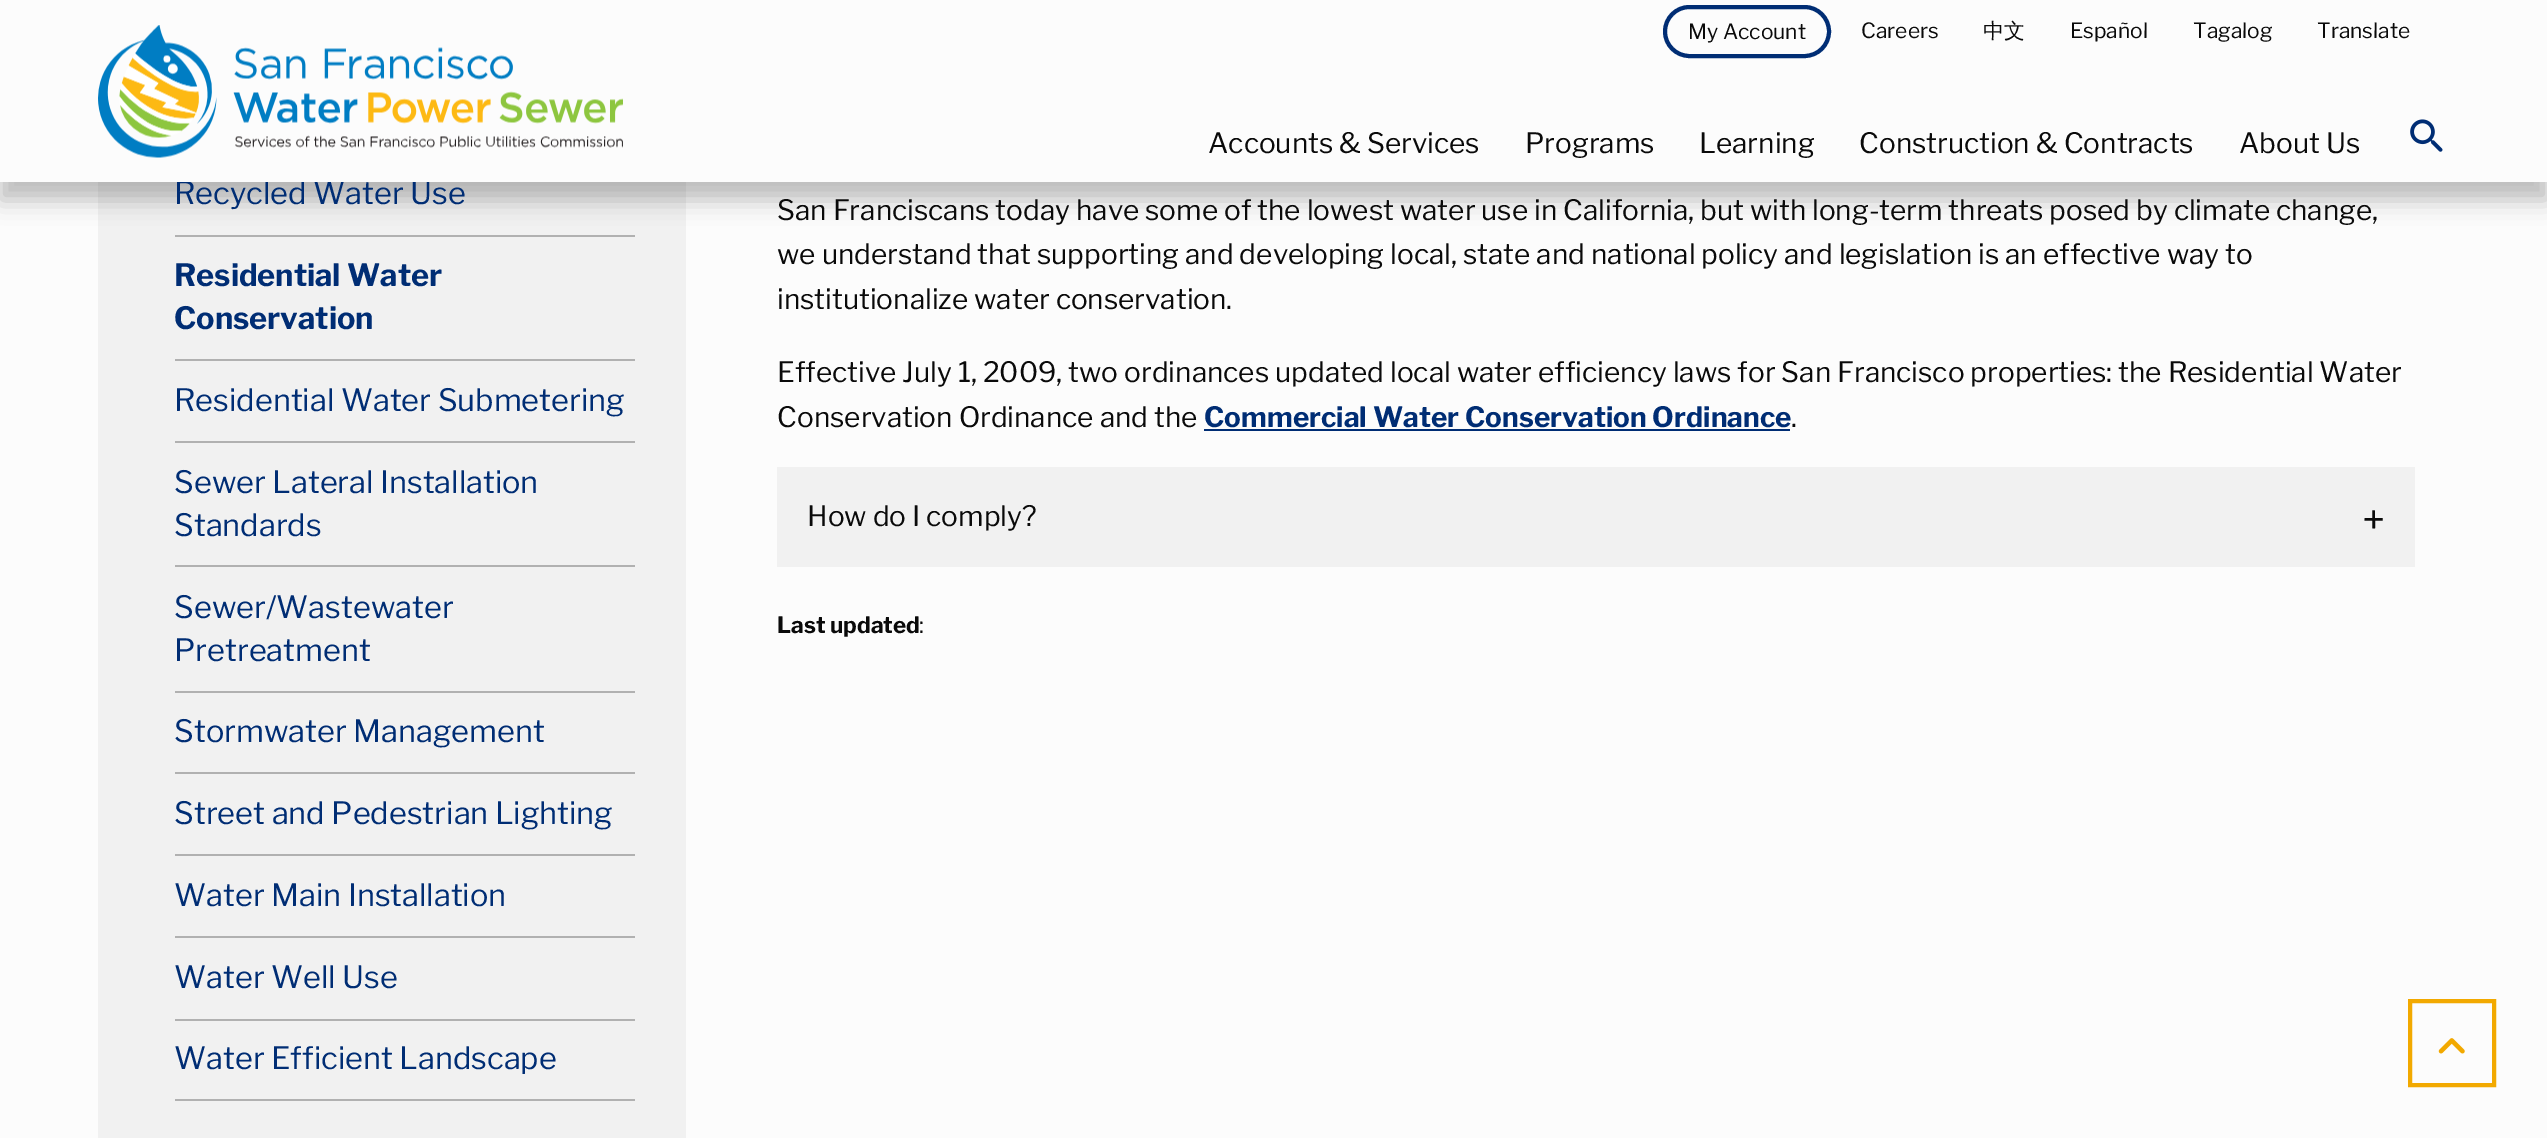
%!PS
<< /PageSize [2547 1138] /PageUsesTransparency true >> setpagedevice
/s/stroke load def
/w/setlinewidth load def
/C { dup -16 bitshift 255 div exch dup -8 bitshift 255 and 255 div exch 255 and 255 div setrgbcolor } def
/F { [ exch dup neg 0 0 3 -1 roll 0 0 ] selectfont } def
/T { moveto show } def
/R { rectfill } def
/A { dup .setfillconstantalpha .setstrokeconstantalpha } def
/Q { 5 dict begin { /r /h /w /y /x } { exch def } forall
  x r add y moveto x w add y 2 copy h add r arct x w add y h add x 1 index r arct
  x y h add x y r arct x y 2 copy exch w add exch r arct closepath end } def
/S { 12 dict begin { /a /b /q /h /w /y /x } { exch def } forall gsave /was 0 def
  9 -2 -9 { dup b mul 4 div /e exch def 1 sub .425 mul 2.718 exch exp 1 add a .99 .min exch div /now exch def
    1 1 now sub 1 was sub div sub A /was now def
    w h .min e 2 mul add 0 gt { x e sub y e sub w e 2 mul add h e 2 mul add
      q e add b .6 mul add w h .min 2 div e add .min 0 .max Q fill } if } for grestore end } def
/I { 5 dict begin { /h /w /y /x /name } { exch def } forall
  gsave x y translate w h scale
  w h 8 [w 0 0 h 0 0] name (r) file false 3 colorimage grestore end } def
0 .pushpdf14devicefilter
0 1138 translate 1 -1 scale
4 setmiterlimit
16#FCFCFC C
0 0 2547 1138 R
16#F1F1F1 C
98 182 588 956 R
16#B1B1B1 C
175 235 460 2 R
16#000000 C
0 18 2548 182 0 11.5 .25 S
/LibreFranklin-Regular 30.75 F
16#002D74 C
(Recycled Water Use) 174 204 T
16#FCFCFC C
0 0 2547 182 R
(1.rgb) 98 25 525 133 I
16#002D74 C
4 w
1665 7 164 49 24.5 Q s
/LibreFranklin-Regular 21 F
16#0A0A0A C
(My Account) 1688 39 T
(Careers) 1861 38 T
/WenQuanYiZenHei-Medium 21 F
(中文) 1983 38 T
/LibreFranklin-Regular 21 F
(Español) 2070 38 T
(Tagalog) 2193 38 T
(Translate) 2317 38 T
/LibreFranklin-Regular 28 F
(Accounts & Services) 1208 153 T
(Programs) 1525 153 T
(Learning) 1699 153 T
(Construction & Contracts) 1859 153 T
(About Us) 2239 153 T
(2.rgb) 2410 119 33 33 I
/LibreFranklin-Bold 30.75 F
16#002D74 C
(Residential Water) 174 286 T
(Conservation) 174 329 T
16#B1B1B1 C
175 359 460 2 R
/LibreFranklin-Regular 30.75 F
16#002D74 C
(Residential Water Submetering) 174 411 T
16#B1B1B1 C
175 441 460 2 R
16#002D74 C
(Sewer Lateral Installation) 174 493 T
(Standards) 174 536 T
16#B1B1B1 C
175 565 460 2 R
16#002D74 C
(Sewer/Wastewater) 174 618 T
(Pretreatment) 174 661 T
16#B1B1B1 C
175 691 460 2 R
16#002D74 C
(Stormwater Management) 174 742 T
16#B1B1B1 C
175 772 460 2 R
16#002D74 C
(Street and Pedestrian Lighting) 174 824 T
16#B1B1B1 C
175 854 460 2 R
16#002D74 C
(Water Main Installation) 174 906 T
16#B1B1B1 C
175 936 460 2 R
16#002D74 C
(Water Well Use) 174 988 T
16#B1B1B1 C
175 1019 460 2 R
16#002D74 C
(Water Efficient Landscape) 174 1069 T
16#B1B1B1 C
175 1099 460 2 R
/LibreFranklin-Regular 28 F
16#0A0A0A C
(San Franciscans today have some of the lowest water use in California, but with long-term threats posed by climate change,) 777 220 T
(we understand that supporting and developing local, state and national policy and legislation is an effective way to) 777 264 T
(institutionalize water conservation.) 777 309 T
(Effective July 1, 2009, two ordinances updated local water efficiency laws for San Francisco properties: the Residential Water) 777 382 T
(Conservation Ordinance and the) 777 427 T
/LibreFranklin-Bold 28 F
16#002D74 C
(Commercial Water Conservation Ordinance) 1204 427 T
1204 429 586 2 R
/LibreFranklin-Regular 28 F
16#0A0A0A C
(.) 1791 427 T
16#F1F1F1 C
777 467 1638 100 R
16#0A0A0A C
(How do I comply?) 807 526 T
/LibreFranklin-Regular 42 F
(+) 2362 535 T
/LibreFranklin-Bold 22.5 F
(Last updated) 777 633 T
/LibreFranklin-Regular 22.5 F
(:) 919 633 T
16#F2A900 C
2410 1001 84 84 rectstroke
(3.rgb) 2438 1038 27 16 I
.poppdf14devicefilter showpage
